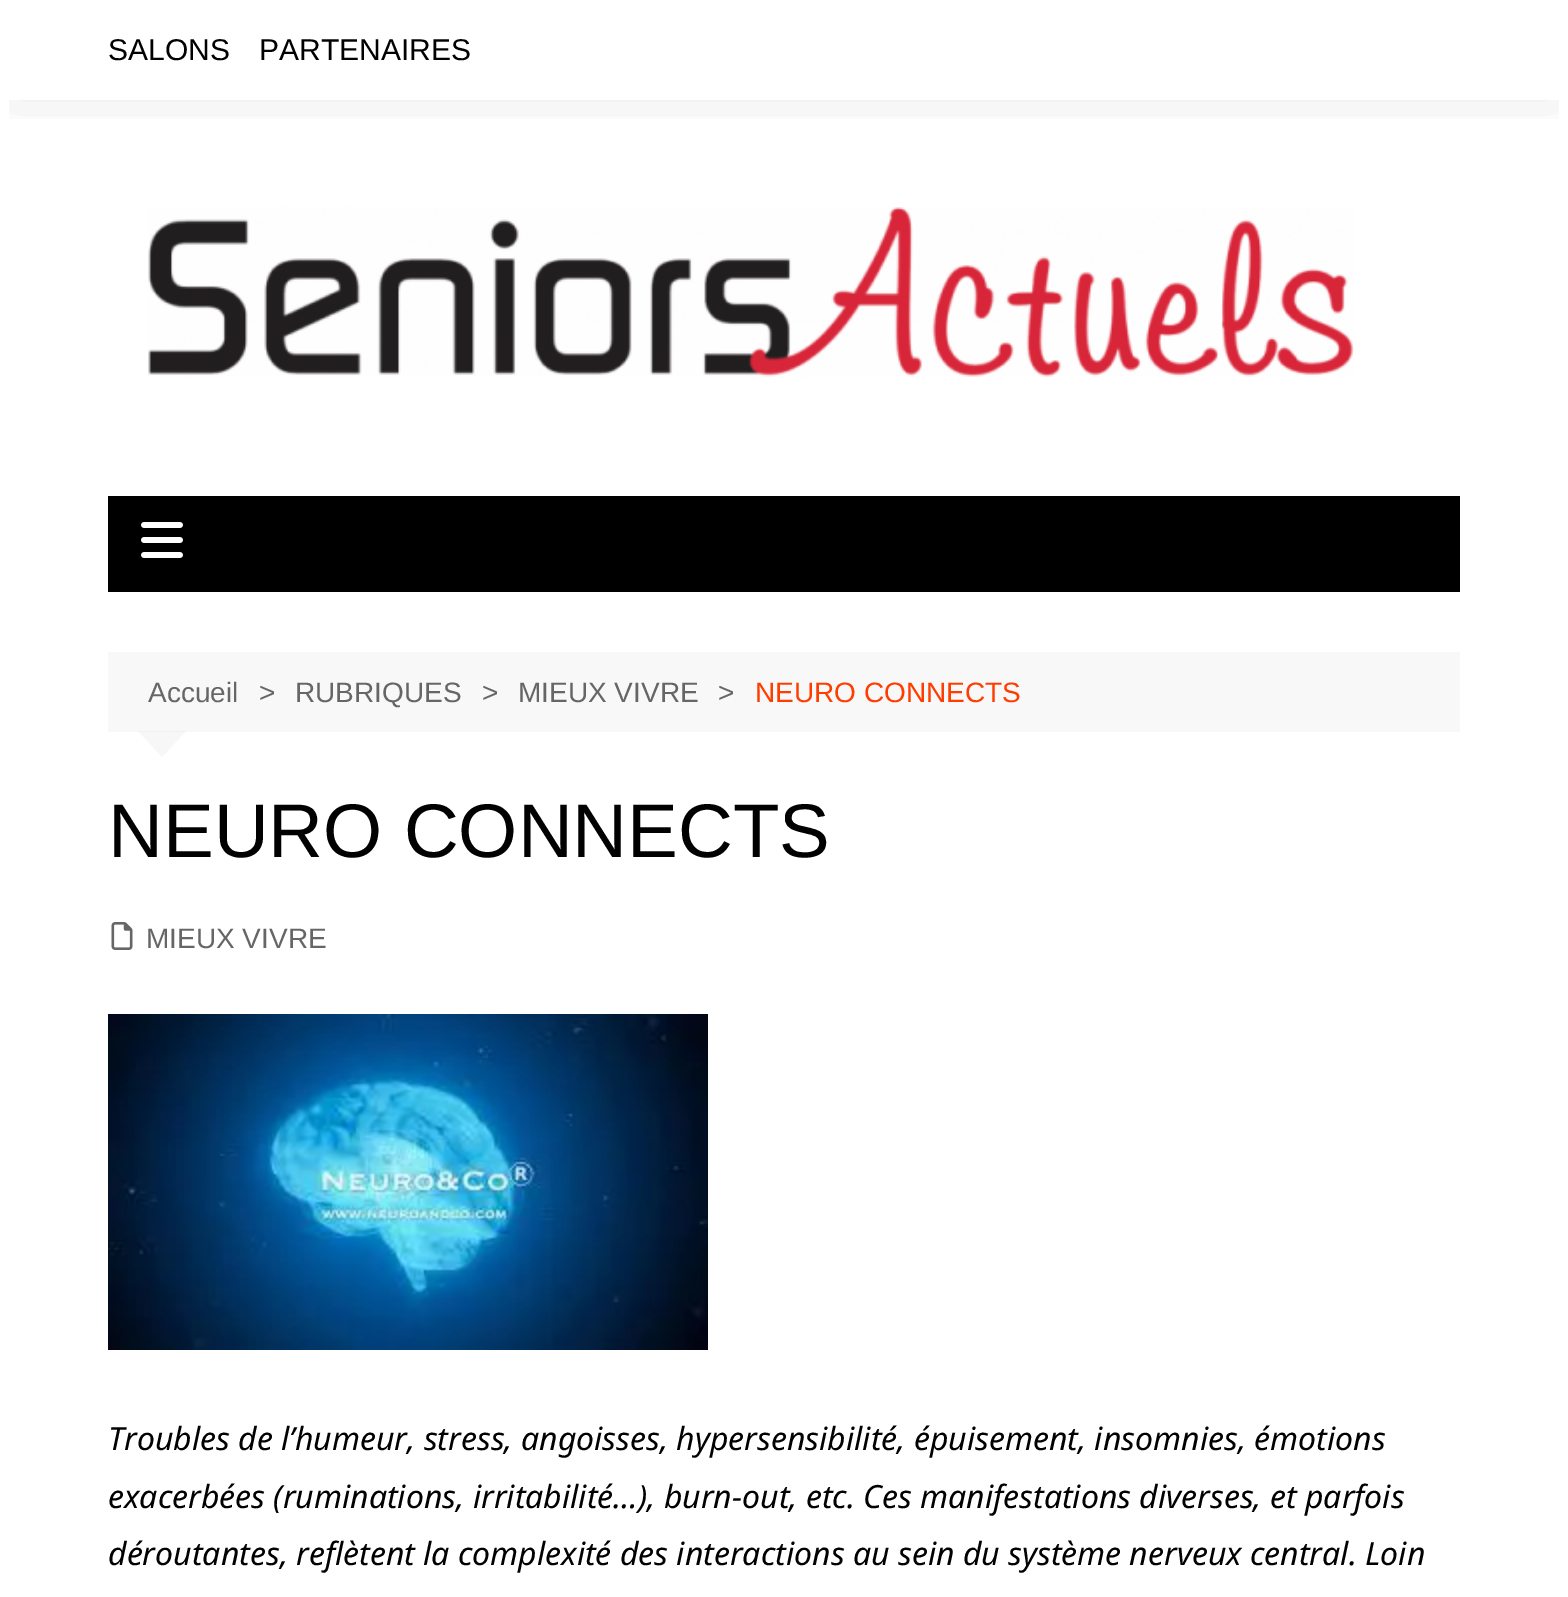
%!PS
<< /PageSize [1568 1597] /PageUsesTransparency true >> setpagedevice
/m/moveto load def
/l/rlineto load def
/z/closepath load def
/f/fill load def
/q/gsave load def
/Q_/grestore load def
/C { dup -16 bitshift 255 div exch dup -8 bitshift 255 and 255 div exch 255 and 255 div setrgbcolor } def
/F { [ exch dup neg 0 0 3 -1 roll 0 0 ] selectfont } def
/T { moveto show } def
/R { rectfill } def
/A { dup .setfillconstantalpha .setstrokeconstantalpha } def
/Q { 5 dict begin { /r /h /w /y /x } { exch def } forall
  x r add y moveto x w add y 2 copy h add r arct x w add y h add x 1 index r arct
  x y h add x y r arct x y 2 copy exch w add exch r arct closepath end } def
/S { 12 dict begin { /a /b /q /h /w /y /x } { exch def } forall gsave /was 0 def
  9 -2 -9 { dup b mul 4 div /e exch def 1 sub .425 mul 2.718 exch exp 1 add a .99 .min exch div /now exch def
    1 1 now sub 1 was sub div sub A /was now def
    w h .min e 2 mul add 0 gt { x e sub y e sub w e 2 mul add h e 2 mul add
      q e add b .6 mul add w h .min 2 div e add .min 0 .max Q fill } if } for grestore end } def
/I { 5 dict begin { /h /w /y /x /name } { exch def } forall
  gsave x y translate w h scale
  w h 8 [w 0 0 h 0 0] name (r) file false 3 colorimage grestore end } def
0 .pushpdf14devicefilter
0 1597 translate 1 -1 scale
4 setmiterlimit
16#FFFFFF C
0 0 1568 1597 R
q
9 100 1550 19 rectclip
16#000000 C
10 14 1548 80 0 30 .1 S
Q_
/LiberationSans-Regular 30 F
16#010101 C
(SALONS) 108 60 T
(PARTENAIRES) 259 60 T
(1.rgb) 148 207 1206 170 I
16#000000 C
108 496 1352 96 R
(2.rgb) 141 522 42 36 I
16#F8F8F8 C
108 652 1352 80 R
/LiberationSans-Regular 28 F
16#666666 C
(Accueil) 148 702 T
(>) 259 702 T
(RUBRIQUES) 295 702 T
(>) 482 702 T
(MIEUX VIVRE) 518 702 T
(>) 718 702 T
16#FF3D00 C
(NEURO CONNECTS) 755 702 T
0.03 A
16#000000 C
138 731 m 48 0 l -24 26 l z f
/LiberationSans-Regular 76 F
1 A
16#010101 C
(NEURO CONNECTS) 108 857 T
(3.rgb) 111 922 22 28 I
/LiberationSans-Regular 28 F
16#666666 C
(MIEUX VIVRE) 146 948 T
(4.rgb) 108 1014 600 336 I
/NotoSans-Italic 32 F
16#010101 C
(Troubles de l’humeur, stress, angoisses, hypersensibilité, épuisement, insomnies, émotions) 108 1450 T
(exacerbées \(ruminations, irritabilité…\), burn-out, etc. Ces manifestations diverses, et parfois) 108 1508 T
(déroutantes, reflètent la complexité des interactions au sein du système nerveux central. Loin) 108 1565 T
.poppdf14devicefilter showpage
